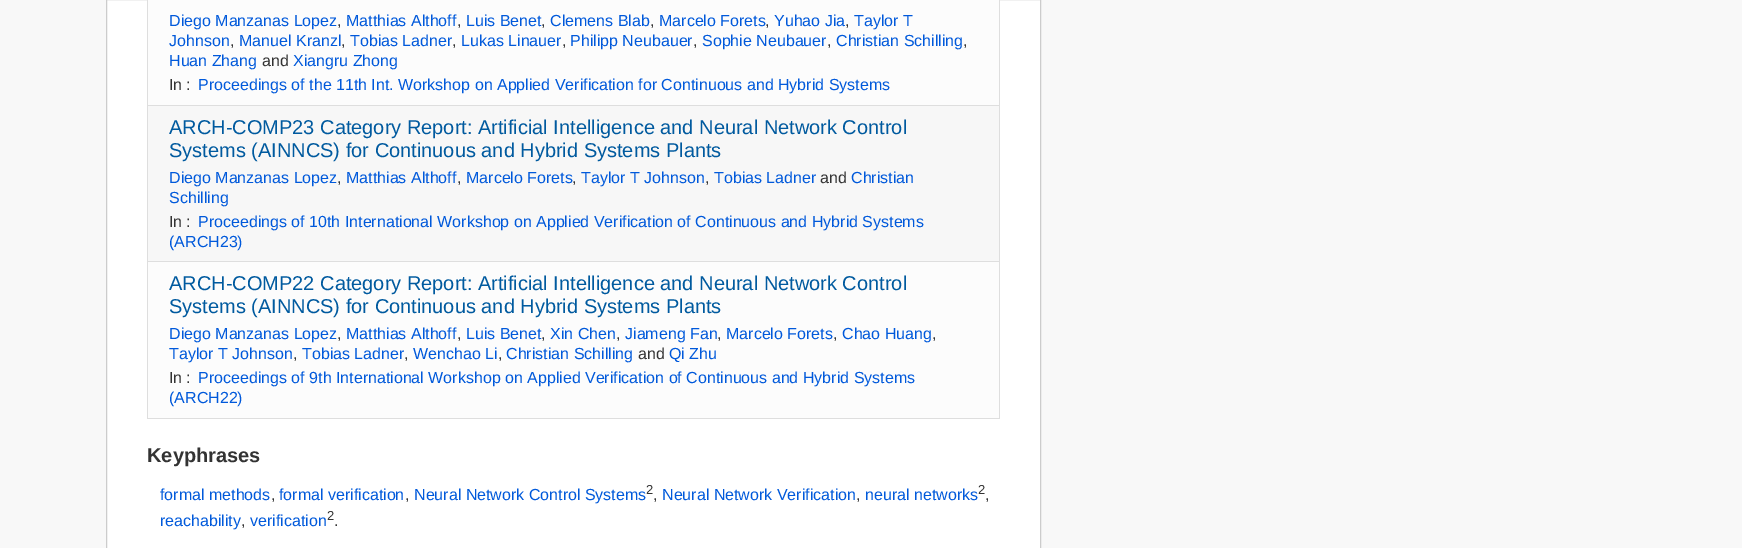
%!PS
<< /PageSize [1742 548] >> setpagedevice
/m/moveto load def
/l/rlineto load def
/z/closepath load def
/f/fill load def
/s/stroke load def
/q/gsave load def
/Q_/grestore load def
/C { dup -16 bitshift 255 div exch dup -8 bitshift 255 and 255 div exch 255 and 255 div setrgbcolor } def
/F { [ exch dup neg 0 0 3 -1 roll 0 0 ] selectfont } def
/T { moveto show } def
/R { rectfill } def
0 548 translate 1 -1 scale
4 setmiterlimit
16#F8F8F8 C
0 0 1742 548 R
16#FFFFFF C
106.5 -.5 m 934 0 l 0 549 l -934 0 l z q f Q_
16#CCCCCC C
s
16#DEDEDE C
999 0 1 419 R
147 418 853 1 R
147 0 1 419 R
16#FCFCFC C
148 0 851 105 R
16#DEDEDE C
147 105 853 1 R
/LiberationSans-Regular 16 F
16#0059DB C
(Diego Manzanas Lopez) 169 26 T
16#333333 C
(,) 337 26 T
16#0059DB C
(Matthias Althoff) 346 26 T
16#333333 C
(,) 457 26 T
16#0059DB C
(Luis Benet) 466 26 T
16#333333 C
(,) 541 26 T
16#0059DB C
(Clemens Blab) 550 26 T
16#333333 C
(,) 650 26 T
16#0059DB C
(Marcelo Forets) 659 26 T
16#333333 C
(,) 765 26 T
16#0059DB C
(Yuhao Jia) 774 26 T
16#333333 C
(,) 845 26 T
16#0059DB C
(Taylor T) 854 26 T
(Johnson) 169 46 T
16#333333 C
(,) 230 46 T
16#0059DB C
(Manuel Kranzl) 239 46 T
16#333333 C
(,) 341 46 T
16#0059DB C
(Tobias Ladner) 350 46 T
16#333333 C
(,) 452 46 T
16#0059DB C
(Lukas Linauer) 461 46 T
16#333333 C
(,) 562 46 T
16#0059DB C
(Philipp Neubauer) 570 46 T
16#333333 C
(,) 693 46 T
16#0059DB C
(Sophie Neubauer) 702 46 T
16#333333 C
(,) 827 46 T
16#0059DB C
(Christian Schilling) 836 46 T
16#333333 C
(,) 963 46 T
16#0059DB C
(Huan Zhang) 169 66 T
16#333333 C
(and) 262 66 T
16#0059DB C
(Xiangru Zhong) 293 66 T
16#333333 C
(In) 169 90 T
(:) 186 90 T
16#0059DB C
(Proceedings of the 11th Int. Workshop on Applied Verification for Continuous and Hybrid Systems) 198 90 T
16#F7F7F7 C
148 106 851 155 R
16#DEDEDE C
147 261 853 1 R
/LiberationSans-Regular 20 F
16#005A9F C
(ARCH-COMP23 Category Report: Artificial Intelligence and Neural Network Control) 169 134 T
(Systems \(AINNCS\) for Continuous and Hybrid Systems Plants) 169 157 T
/LiberationSans-Regular 16 F
16#0059DB C
(Diego Manzanas Lopez) 169 183 T
16#333333 C
(,) 337 183 T
16#0059DB C
(Matthias Althoff) 346 183 T
16#333333 C
(,) 457 183 T
16#0059DB C
(Marcelo Forets) 466 183 T
16#333333 C
(,) 572 183 T
16#0059DB C
(Taylor T Johnson) 581 183 T
16#333333 C
(,) 705 183 T
16#0059DB C
(Tobias Ladner) 714 183 T
16#333333 C
(and) 820 183 T
16#0059DB C
(Christian) 851 183 T
(Schilling) 169 203 T
16#333333 C
(In) 169 227 T
(:) 186 227 T
16#0059DB C
(Proceedings of 10th International Workshop on Applied Verification of Continuous and Hybrid Systems) 198 227 T
(\(ARCH23\)) 169 247 T
16#FCFCFC C
148 262 851 156 R
/LiberationSans-Regular 20 F
16#005A9F C
(ARCH-COMP22 Category Report: Artificial Intelligence and Neural Network Control) 169 290 T
(Systems \(AINNCS\) for Continuous and Hybrid Systems Plants) 169 313 T
/LiberationSans-Regular 16 F
16#0059DB C
(Diego Manzanas Lopez) 169 339 T
16#333333 C
(,) 337 339 T
16#0059DB C
(Matthias Althoff) 346 339 T
16#333333 C
(,) 457 339 T
16#0059DB C
(Luis Benet) 466 339 T
16#333333 C
(,) 541 339 T
16#0059DB C
(Xin Chen) 550 339 T
16#333333 C
(,) 616 339 T
16#0059DB C
(Jiameng Fan) 625 339 T
16#333333 C
(,) 717 339 T
16#0059DB C
(Marcelo Forets) 726 339 T
16#333333 C
(,) 833 339 T
16#0059DB C
(Chao Huang) 842 339 T
16#333333 C
(,) 932 339 T
16#0059DB C
(Taylor T Johnson) 169 359 T
16#333333 C
(,) 293 359 T
16#0059DB C
(Tobias Ladner) 302 359 T
16#333333 C
(,) 404 359 T
16#0059DB C
(Wenchao Li) 413 359 T
16#333333 C
(,) 498 359 T
16#0059DB C
(Christian Schilling) 506 359 T
16#333333 C
(and) 638 359 T
16#0059DB C
(Qi Zhu) 669 359 T
16#333333 C
(In) 169 383 T
(:) 186 383 T
16#0059DB C
(Proceedings of 9th International Workshop on Applied Verification of Continuous and Hybrid Systems) 198 383 T
(\(ARCH22\)) 169 403 T
/LiberationSans-Bold 20 F
16#333333 C
(Keyphrases) 147 462 T
/LiberationSans-Regular 16 F
16#0059DB C
(formal methods) 160 500 T
16#333333 C
(,) 271 500 T
16#0059DB C
(formal verification) 279 500 T
16#333333 C
(,) 405 500 T
16#0059DB C
(Neural Network Control Systems) 414 500 T
/LiberationSans-Regular 13 F
16#333333 C
(2) 646 494 T
/LiberationSans-Regular 16 F
(,) 653 500 T
16#0059DB C
(Neural Network Verification) 662 500 T
16#333333 C
(,) 856 500 T
16#0059DB C
(neural networks) 865 500 T
/LiberationSans-Regular 13 F
16#333333 C
(2) 978 494 T
/LiberationSans-Regular 16 F
(,) 985 500 T
16#0059DB C
(reachability) 160 526 T
16#333333 C
(,) 241 526 T
16#0059DB C
(verification) 250 526 T
/LiberationSans-Regular 13 F
16#333333 C
(2) 327 520 T
/LiberationSans-Regular 16 F
(.) 334 526 T
showpage
